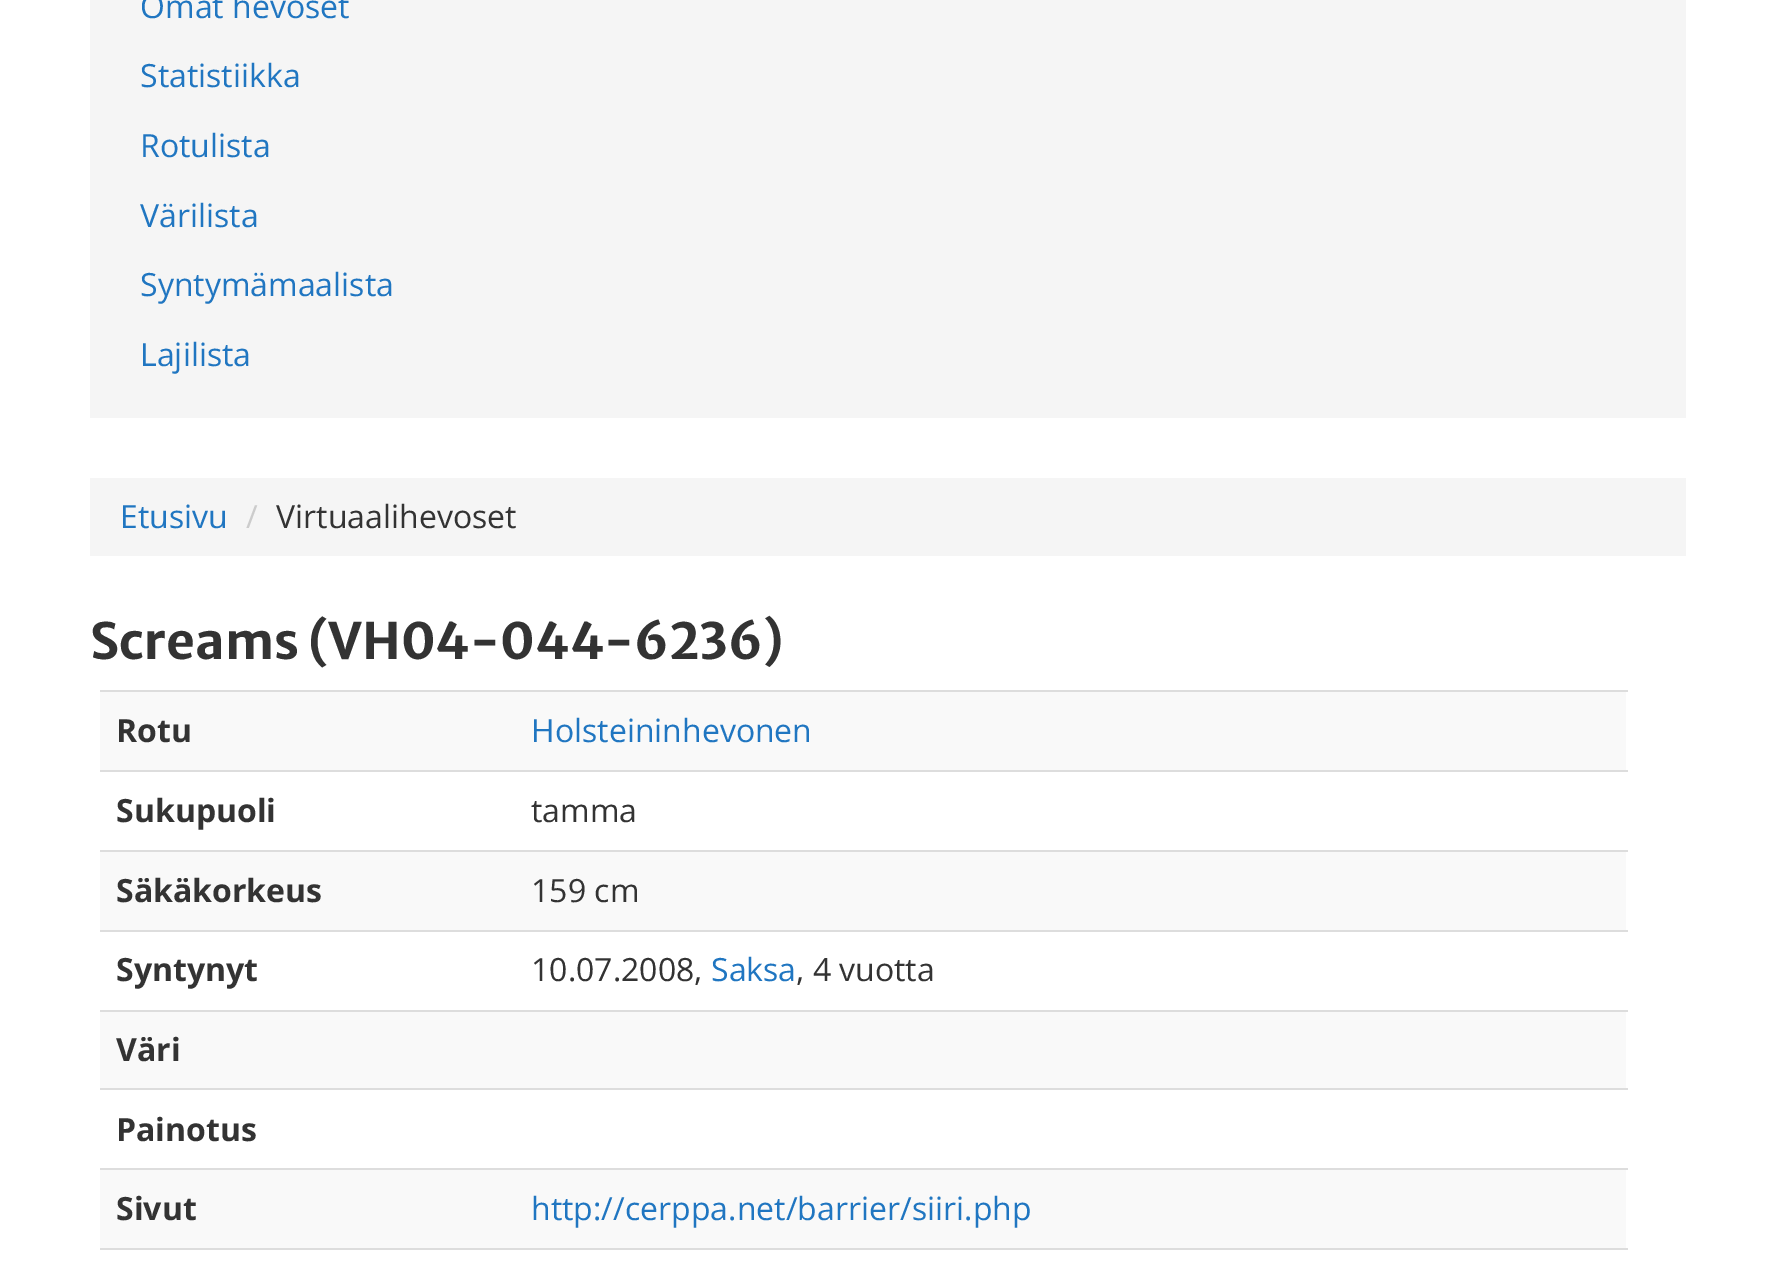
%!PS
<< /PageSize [1776 1268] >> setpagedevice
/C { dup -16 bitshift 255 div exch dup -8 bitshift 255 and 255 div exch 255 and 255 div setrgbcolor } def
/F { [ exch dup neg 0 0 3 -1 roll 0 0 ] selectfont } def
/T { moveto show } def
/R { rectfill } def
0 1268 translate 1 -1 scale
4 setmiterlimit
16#FFFFFF C
0 0 1776 1268 R
16#F5F5F5 C
90 0 1596 418 R
/OpenSans-Regular 32 F
16#2076C1 C
(Omat hevoset) 140 18 T
(Statistiikka) 140 87 T
(Rotulista) 140 157 T
(Värilista) 140 227 T
(Syntymämaalista) 140 296 T
(Lajilista) 140 366 T
16#F5F5F5 C
90 478 1596 78 R
16#2076C1 C
(Etusivu) 120 528 T
16#CCCCCC C
(/) 246 528 T
16#333333 C
(Virtuaalihevoset) 276 528 T
/MerriweatherSans-Bold 50 F
(Screams \(VH04-044-6236\)) 90 659 T
16#F9F9F9 C
100 692 1526 78 R
/OpenSans-Bold 32 F
16#333333 C
(Rotu) 116 742 T
16#DDDDDD C
100 690 1528 2 R
/OpenSans-Regular 32 F
16#2076C1 C
(Holsteininhevonen) 531 742 T
/OpenSans-Bold 32 F
16#333333 C
(Sukupuoli) 116 822 T
16#DDDDDD C
100 770 1528 2 R
/OpenSans-Regular 32 F
16#333333 C
(tamma) 531 822 T
16#F9F9F9 C
100 852 1526 78 R
/OpenSans-Bold 32 F
16#333333 C
(Säkäkorkeus) 116 902 T
16#DDDDDD C
100 850 1528 2 R
/OpenSans-Regular 32 F
16#333333 C
(159 cm) 531 902 T
/OpenSans-Bold 32 F
(Syntynyt) 116 981 T
16#DDDDDD C
100 930 1528 2 R
/OpenSans-Regular 32 F
16#333333 C
(10.07.2008,) 531 981 T
16#2076C1 C
(Saksa) 711 981 T
16#333333 C
(, 4 vuotta) 796 981 T
16#F9F9F9 C
100 1012 1526 76 R
16#DDDDDD C
100 1010 1528 2 R
/OpenSans-Bold 32 F
16#333333 C
(Väri) 116 1061 T
16#DDDDDD C
100 1088 1528 2 R
16#333333 C
(Painotus) 116 1141 T
16#F9F9F9 C
100 1170 1526 78 R
16#333333 C
(Sivut) 116 1220 T
16#DDDDDD C
100 1168 1528 2 R
/OpenSans-Regular 32 F
16#2076C1 C
(http://cerppa.net/barrier/siiri.php) 531 1220 T
16#DDDDDD C
100 1248 1528 2 R
showpage
